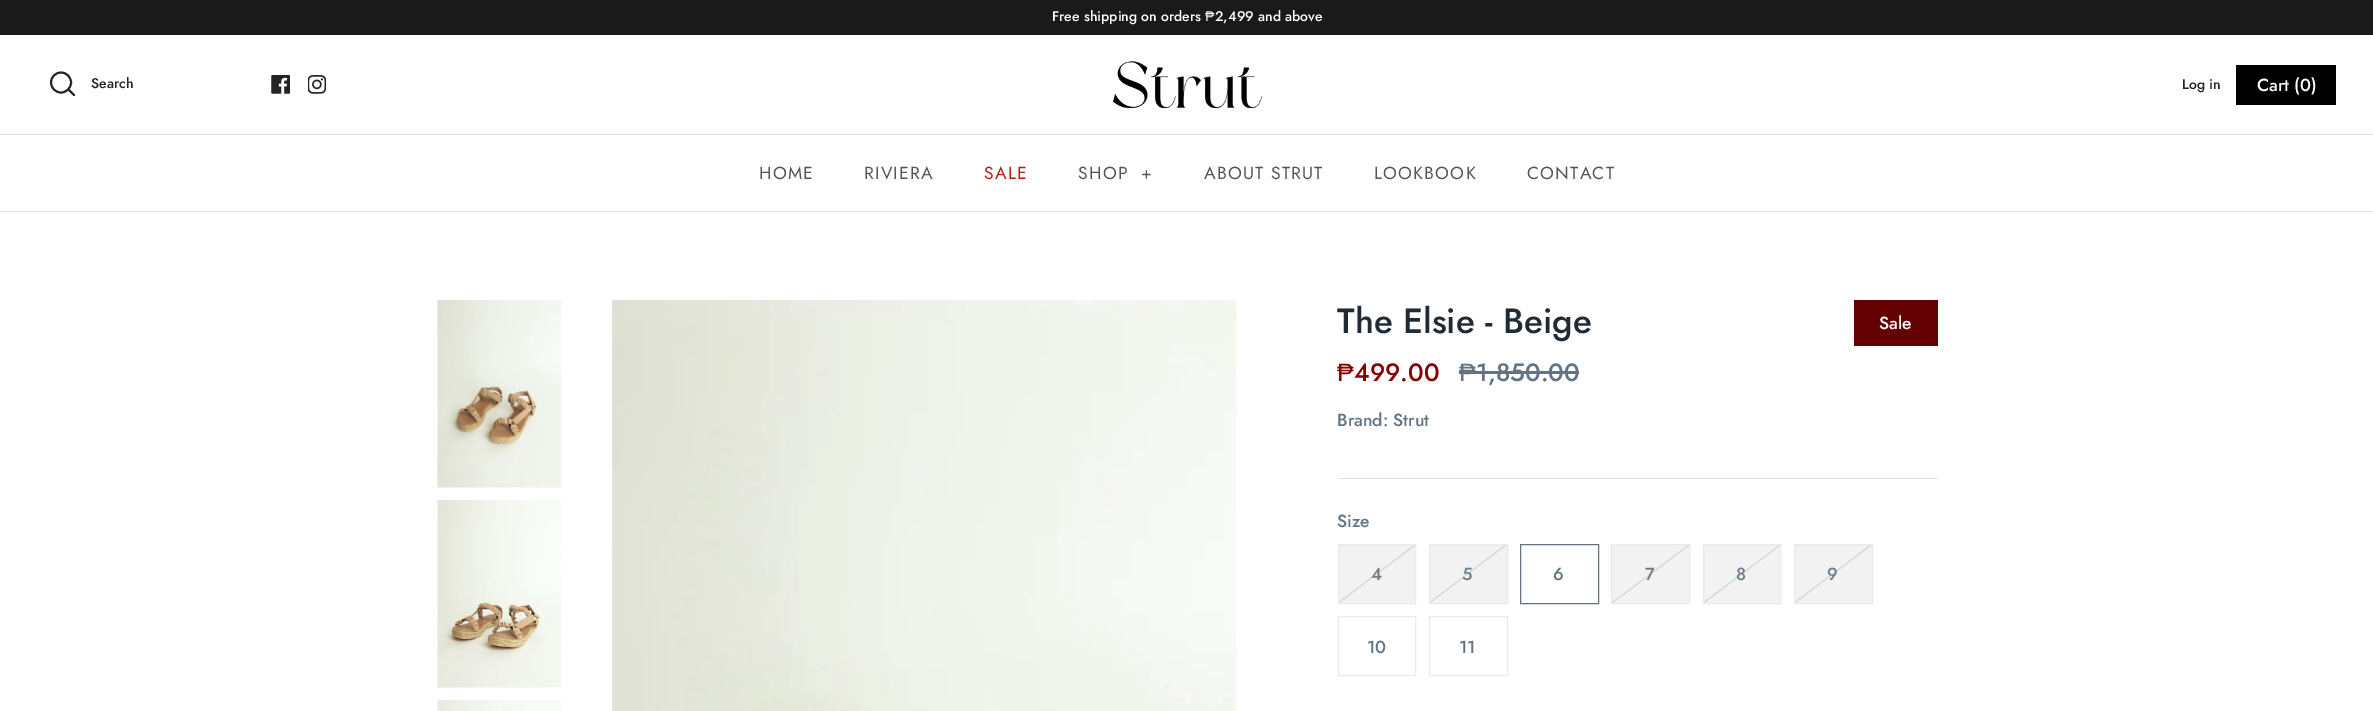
%!PS
<< /PageSize [2373 711] >> setpagedevice
/m/moveto load def
/l/rlineto load def
/s/stroke load def
/w/setlinewidth load def
/C { dup -16 bitshift 255 div exch dup -8 bitshift 255 and 255 div exch 255 and 255 div setrgbcolor } def
/F { [ exch dup neg 0 0 3 -1 roll 0 0 ] selectfont } def
/T { moveto show } def
/R { rectfill } def
/O { newpath 0 360 arc closepath } def
/I { 5 dict begin { /h /w /y /x /name } { exch def } forall
  gsave x y translate w h scale
  w h 8 [w 0 0 h 0 0] name (r) file false 3 colorimage grestore end } def
0 711 translate 1 -1 scale
4 setmiterlimit
16#FFFFFF C
0 0 2373 711 R
16#1A1A1A C
0 0 2373 35 R
/Jost-Medium 14 F
16#FFFFFF C
(Free shipping on orders) 1052 21 T
/LiberationSans-Regular 14 F
(₱) 1205 21 T
/Jost-Medium 14 F
(2,499 and above) 1215 21 T
(1.rgb) 1112 61 151 48 I
16#232323 C
1.9 w
61 82.5 10 O s
1 setlinecap
1 setlinejoin
74 95 m -5.5 -5.5 l s
(Search) 91 88 T
(2.rgb) 271 75 19 19 I
(3.rgb) 308 75 18 19 I
(Log in) 2182 89 T
16#000000 C
2236 65 100 40 R
/Jost-Medium 17.5 F
16#FFFFFF C
(Cart \(0\)) 2257 91 T
16#E2E2E2 C
0 211 2373 1 R
0 134 2373 1 R
/Jost-Regular 17.5 F
16#555555 C
759 179 m 1.25 0 (HOME) ashow
864 179 m 1.25 0 (RIVIERA) ashow
16#B61D0F C
984 179 m 1.25 0 (SALE) ashow
16#555555 C
1078 179 m 1.25 0 (SHOP) ashow
1141 179 m 1.25 0 (+) ashow
1204 179 m 1.25 0 (ABOUT STRUT) ashow
1374 179 m 1.25 0 (LOOKBOOK) ashow
1527 179 m 1.25 0 (CONTACT) ashow
(4.rgb) 437 300 125 188 I
(5.rgb) 437 500 125 188 I
(6.rgb) 437 700 124 11 I
(7.rgb) 612 300 625 411 I
16#E2E2E2 C
1338 478 600 1 R
/Jost-Medium 35 F
16#212B36 C
(The Elsie - Beige) 1337 333 T
16#630001 C
1854 300 84 46 R
/Jost-Medium 17.5 F
16#FFFFFF C
(Sale) 1879 329 T
/LiberationSans-Regular 25 F
16#860001 C
(₱) 1337 381 T
/Jost-Medium 25 F
(499.00) 1354 381 T
/LiberationSans-Regular 25 F
16#637381 C
(₱) 1459 381 T
1459 371 120 3 R
/Jost-Medium 25 F
(1,850.00) 1476 381 T
/Jost-Medium 17.5 F
(Brand: Strut) 1337 426 T
(Size) 1337 527 T
16#F2F2F2 C
1339 545 76 58 R
16#D5D9DB C
1.1 w
0 setlinecap
0 setlinejoin
1415 545 m -76 57.5 l s
16#E8EAEC C
1 w
1338.5 544.5 77 59 rectstroke
16#717F8C C
(4) 1371 580 T
16#F2F2F2 C
1430 545 77 58 R
16#D5D9DB C
1.1 w
1506 545 m -76 57.5 l s
16#E8EAEC C
1 w
1429.5 544.5 78 59 rectstroke
16#717F8C C
(5) 1462 580 T
16#637381 C
1520.5 544.5 78 59 rectstroke
(6) 1553 580 T
16#F2F2F2 C
1612 545 77 58 R
16#D5D9DB C
1.1 w
1689 545 m -76.5 57.5 l s
16#E8EAEC C
1 w
1611.5 544.5 78 59 rectstroke
16#717F8C C
(7) 1645 580 T
16#F2F2F2 C
1704 545 76 58 R
16#D5D9DB C
1.1 w
1780 545 m -76 57.5 l s
16#E8EAEC C
1 w
1703.5 544.5 77 59 rectstroke
16#717F8C C
(8) 1736 580 T
16#F2F2F2 C
1795 545 77 58 R
16#D5D9DB C
1.1 w
1871 545 m -76 57.5 l s
16#E8EAEC C
1 w
1794.5 544.5 78 59 rectstroke
16#717F8C C
(9) 1827 580 T
16#E8EAEC C
1338.5 616.5 77 59 rectstroke
16#637381 C
(10) 1367 653 T
16#E8EAEC C
1429.5 616.5 78 59 rectstroke
16#637381 C
(11) 1459 653 T
showpage
